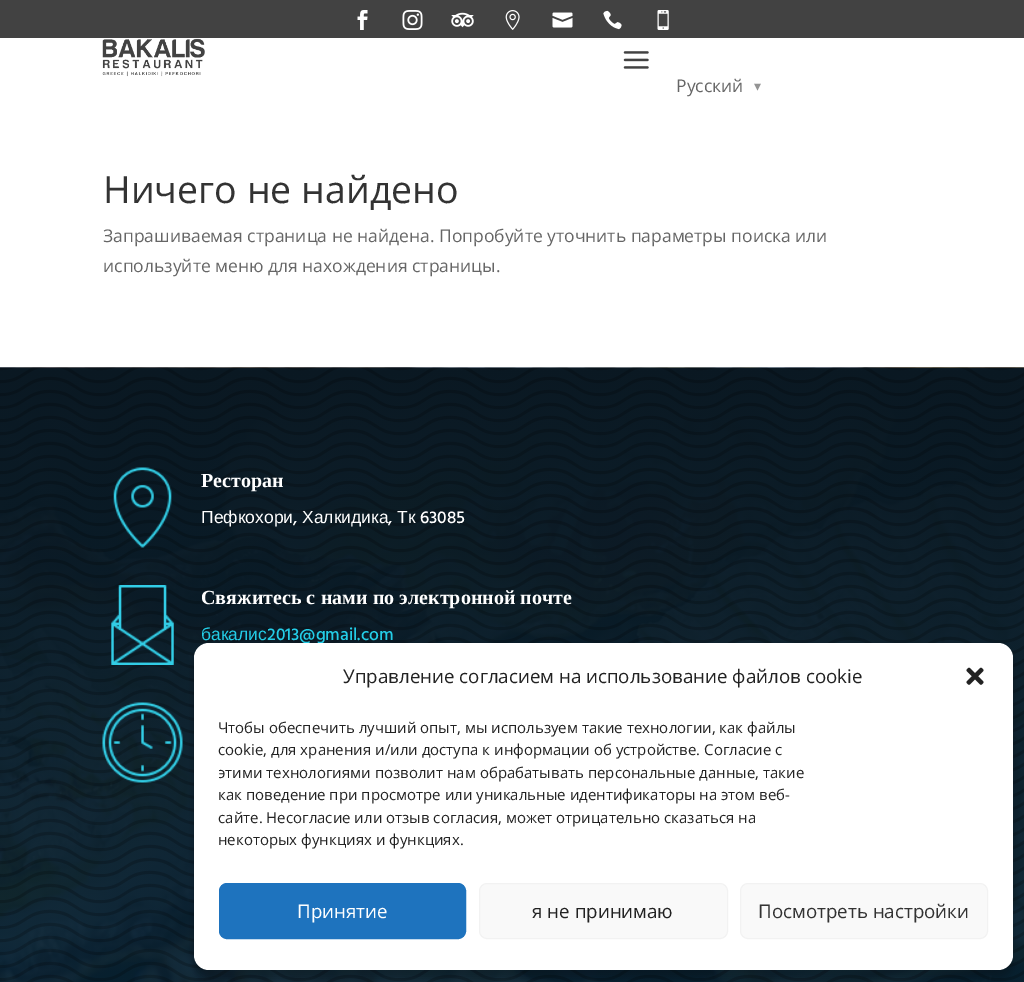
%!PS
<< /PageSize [1024 982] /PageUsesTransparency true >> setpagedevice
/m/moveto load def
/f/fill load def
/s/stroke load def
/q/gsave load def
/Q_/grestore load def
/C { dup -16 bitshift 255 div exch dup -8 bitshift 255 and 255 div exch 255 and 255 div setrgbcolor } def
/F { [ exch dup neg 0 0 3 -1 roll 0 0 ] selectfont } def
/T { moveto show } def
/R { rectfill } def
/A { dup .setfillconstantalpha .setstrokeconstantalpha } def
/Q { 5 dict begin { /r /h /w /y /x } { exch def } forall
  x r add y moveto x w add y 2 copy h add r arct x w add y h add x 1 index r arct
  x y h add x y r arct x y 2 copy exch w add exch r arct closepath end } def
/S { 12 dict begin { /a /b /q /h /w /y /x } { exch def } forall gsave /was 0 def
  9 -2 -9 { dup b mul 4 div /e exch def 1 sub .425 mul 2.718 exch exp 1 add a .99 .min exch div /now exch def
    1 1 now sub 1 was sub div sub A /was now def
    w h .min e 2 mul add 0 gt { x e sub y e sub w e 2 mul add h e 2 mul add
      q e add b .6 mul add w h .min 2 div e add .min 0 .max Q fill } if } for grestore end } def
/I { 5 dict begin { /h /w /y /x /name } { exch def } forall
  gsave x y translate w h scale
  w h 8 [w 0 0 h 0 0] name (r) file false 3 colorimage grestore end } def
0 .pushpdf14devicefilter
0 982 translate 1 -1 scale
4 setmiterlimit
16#FFFFFF C
0 0 1024 982 R
16#424242 C
0 0 1024 38 R
(1.rgb) 357 10 11 20 I
(2.rgb) 402 10 21 20 I
(3.rgb) 451 12 23 16 I
(4.rgb) 505 10 15 20 I
(5.rgb) 552 12 21 16 I
(6.rgb) 603 10 19 20 I
(7.rgb) 657 10 12 20 I
(8.rgb) 102 38 103 39 I
(9.rgb) 623 51 26 18 I
/OpenSans-Regular 17.5 F
16#666666 C
(Русский) 676 92 T
/DejaVuSans-Regular 14 F
16#949494 C
(▾) 754 91 T
/OpenSans-Regular 37.5 F
16#333333 C
(Ничего не найдено) 103 203 T
/OpenSans-Regular 17.5 F
16#666666 C
(Запрашиваемая страница не найдена. Попробуйте уточнить параметры поиска или) 103 242 T
(используйте меню для нахождения страницы.) 103 272 T
(10.rgb) 0 367 1024 615 I
(11.rgb) 0 367 1024 615 I
(12.rgb) 113 467 59 81 I
/LiberationSerif-Bold 20 F
16#FFFFFF C
(Ресторан) 201 487 T
/LiberationSans-Regular 17.5 F
(Пефкохори) 201 523 T
/Hind-Medium 17.5 F
(,) 293 523 T
/LiberationSans-Regular 17.5 F
(Халкидика) 302 523 T
/Hind-Medium 17.5 F
(,) 388 523 T
/LiberationSans-Regular 17.5 F
(Тк) 397 523 T
/Hind-Medium 17.5 F
(63085) 420 523 T
(13.rgb) 111 585 63 80 I
/LiberationSerif-Bold 20 F
201 604 m .25 0 32 (Свяжитесь с нами по электронной почте) widthshow
/LiberationSans-Regular 17.5 F
16#23CDE7 C
(бакалис) 201 640 T
/Hind-Medium 17.5 F
(2013@gmail.com) 267 640 T
(14.rgb) 102 702 81 81 I
16#000000 C
194 650 819 328 15 4 .23 S
16#FFFFFF C
194 643 819 327 15 Q f
/OpenSans-Regular 18.75 F
16#222222 C
(Управление согласием на использование файлов cookie) 343 683 T
(15.rgb) 966 667 18 18 I
/OpenSans-Regular 15 F
(Чтобы обеспечить лучший опыт, мы используем такие технологии, как файлы) 218 733 T
(cookie, для хранения и/или доступа к информации об устройстве. Согласие с) 218 755 T
q
219 716 769 142 rectclip
(этими технологиями позволит нам обрабатывать персональные данные, такие) 218 778 T
Q_
(как поведение при просмотре или уникальные идентификаторы на этом веб-) 218 800 T
(сайте. Несогласие или отзыв согласия, может отрицательно сказаться на) 218 823 T
(некоторых функциях и функциях.) 218 845 T
16#1E73BE C
219.5 883.5 246 55 7.5 Q q f Q_
s
/OpenSans-Regular 18.75 F
16#FFFFFF C
(Принятие) 297 918 T
16#F9F9F9 C
479.5 883.5 248 55 7.5 Q q f Q_
16#F2F2F2 C
s
16#222222 C
(я не принимаю) 532 918 T
16#F9F9F9 C
740.5 883.5 247 55 7.5 Q q f Q_
16#F2F2F2 C
s
16#333333 C
(Посмотреть настройки) 758 918 T
.poppdf14devicefilter showpage
